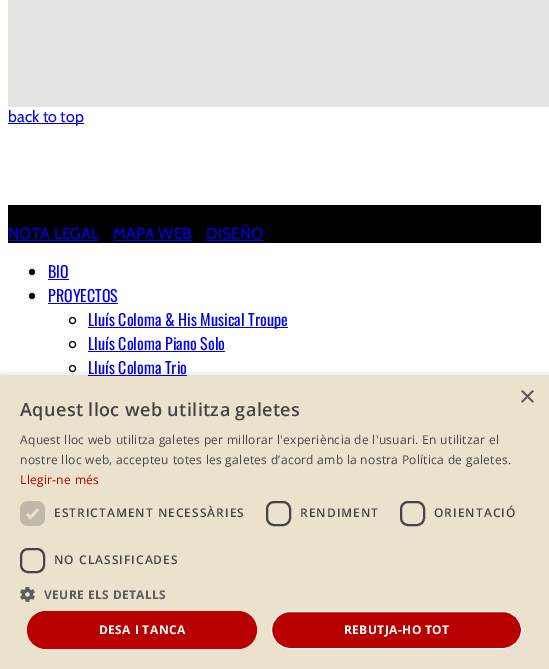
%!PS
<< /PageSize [549 669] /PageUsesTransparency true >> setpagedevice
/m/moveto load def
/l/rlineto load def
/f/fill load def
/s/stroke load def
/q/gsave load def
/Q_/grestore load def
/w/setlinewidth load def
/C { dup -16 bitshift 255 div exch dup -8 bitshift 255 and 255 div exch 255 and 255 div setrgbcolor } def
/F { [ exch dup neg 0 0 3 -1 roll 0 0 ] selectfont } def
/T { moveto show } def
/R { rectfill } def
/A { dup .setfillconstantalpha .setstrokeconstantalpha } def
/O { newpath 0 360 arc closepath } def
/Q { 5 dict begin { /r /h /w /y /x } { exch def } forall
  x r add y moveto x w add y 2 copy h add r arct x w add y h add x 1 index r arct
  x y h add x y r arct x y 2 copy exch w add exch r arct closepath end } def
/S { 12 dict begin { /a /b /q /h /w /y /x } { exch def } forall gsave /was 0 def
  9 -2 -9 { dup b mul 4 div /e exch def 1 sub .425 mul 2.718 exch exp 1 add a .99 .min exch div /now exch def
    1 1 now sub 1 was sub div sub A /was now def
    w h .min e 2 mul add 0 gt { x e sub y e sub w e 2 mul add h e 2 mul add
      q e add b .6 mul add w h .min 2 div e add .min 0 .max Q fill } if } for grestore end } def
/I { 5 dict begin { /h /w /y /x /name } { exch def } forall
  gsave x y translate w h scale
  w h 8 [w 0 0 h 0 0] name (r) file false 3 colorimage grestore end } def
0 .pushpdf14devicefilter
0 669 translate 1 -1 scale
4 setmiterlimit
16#FFFFFF C
0 0 549 669 R
16#E5E3DF C
8 0 541 107 R
16#0000EE C
8 123 76 1 R
/Cabin-Regular 16 F
(back to top) 8 122 T
16#000000 C
8 205 533 38 R
16#0000EE C
(NOTA LEGAL) 8 239 T
8 240 91 1 R
(MAPA WEB) 113 239 T
113 240 79 1 R
(DISEÑO) 206 239 T
206 240 58 1 R
16#000000 C
32 272 3 O f
/Oswald-Regular 16 F
16#0000EE C
(BIO) 48 278 T
48 279 21 1 R
16#000000 C
32 296 3 O f
16#0000EE C
(PROYECTOS) 48 302 T
48 303 70 1 R
16#000000 C
72.5 320.5 3 O s
16#0000EE C
88 327 200 1 R
(Lluís Coloma & His Musical Troupe) 88 326 T
16#000000 C
72.5 344.5 3 O s
16#0000EE C
(Lluís Coloma Piano Solo) 88 350 T
88 351 137 1 R
16#000000 C
72.5 368.5 3 O s
16#0000EE C
(Lluís Coloma Trio) 88 374 T
88 375 99 1 R
16#000000 C
1 378 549 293 0 4 .35 S
16#EAE2CD C
0 376 549 293 R
/LiberationSans-Regular 29 F
16#5D5C59 C
(×) 519 406 T
/OpenSans-SemiBold 18 F
16#444444 C
20 416 m .4 0 (Aquest lloc web utilitza galetes) ashow
/OpenSans-Regular 12 F
20 444 m .3 0 (Aquest lloc web utilitza galetes per millorar l'experiència de l'usuari. En utilitzar el) ashow
20 464 m .3 0 (nostre lloc web, accepteu totes les galetes d’acord amb la nostra Política de galetes.) ashow
16#B90000 C
20 484 m .3 0 (Llegir-ne més) ashow
16#BFB9A9 C
20 501 25 25 8 Q f
16#EAE2CD C
2.6 w
27 514 m 3.5 3.5 l 7.5 -8 l s
/OpenSans-SemiBold 12 F
16#444444 C
54 517 m 1 0 (ESTRICTAMENT NECESSÀRIES) ashow
2 w
267 502 23 23 7 Q s
300 517 m 1 0 (RENDIMENT) ashow
401 502 23 23 7 Q s
434 517 m 1 0 (ORIENTACIÓ) ashow
21 549 23 23 7 Q s
54 564 m 1 0 (NO CLASSIFICADES) ashow
(1.rgb) 20 587 15 15 I
/OpenSans-Bold 12 F
16#5D5C59 C
44 599 m .4 0 (VEURE ELS DETALLS) ashow
16#B90000 C
27 611 230 38 19 Q f
16#FFFFFF C
99 634 m .4 0 (DESA I TANCA) ashow
16#B90000 C
271.5 611.5 250 37 18.5 Q q f Q_
16#FFFFFF C
1 w
s
344 634 m .4 0 (REBUTJA-HO TOT) ashow
.poppdf14devicefilter showpage
